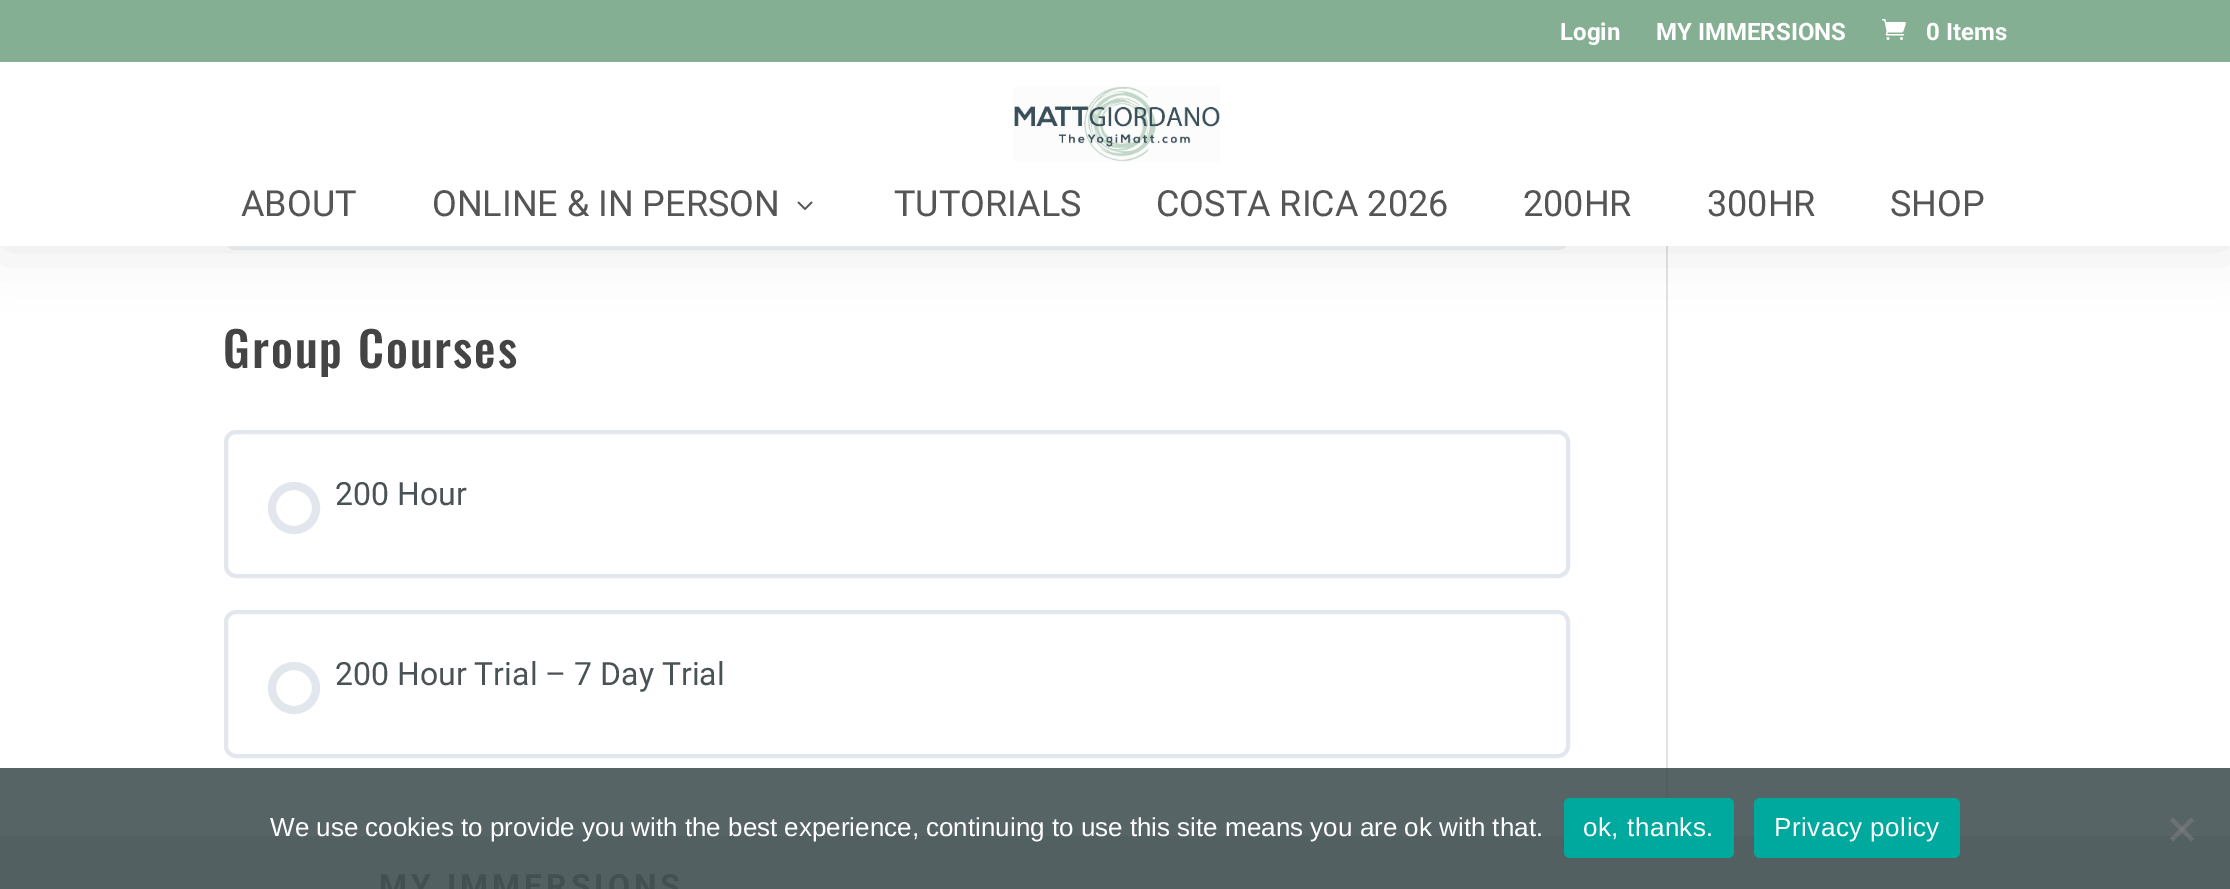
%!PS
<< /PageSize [2230 889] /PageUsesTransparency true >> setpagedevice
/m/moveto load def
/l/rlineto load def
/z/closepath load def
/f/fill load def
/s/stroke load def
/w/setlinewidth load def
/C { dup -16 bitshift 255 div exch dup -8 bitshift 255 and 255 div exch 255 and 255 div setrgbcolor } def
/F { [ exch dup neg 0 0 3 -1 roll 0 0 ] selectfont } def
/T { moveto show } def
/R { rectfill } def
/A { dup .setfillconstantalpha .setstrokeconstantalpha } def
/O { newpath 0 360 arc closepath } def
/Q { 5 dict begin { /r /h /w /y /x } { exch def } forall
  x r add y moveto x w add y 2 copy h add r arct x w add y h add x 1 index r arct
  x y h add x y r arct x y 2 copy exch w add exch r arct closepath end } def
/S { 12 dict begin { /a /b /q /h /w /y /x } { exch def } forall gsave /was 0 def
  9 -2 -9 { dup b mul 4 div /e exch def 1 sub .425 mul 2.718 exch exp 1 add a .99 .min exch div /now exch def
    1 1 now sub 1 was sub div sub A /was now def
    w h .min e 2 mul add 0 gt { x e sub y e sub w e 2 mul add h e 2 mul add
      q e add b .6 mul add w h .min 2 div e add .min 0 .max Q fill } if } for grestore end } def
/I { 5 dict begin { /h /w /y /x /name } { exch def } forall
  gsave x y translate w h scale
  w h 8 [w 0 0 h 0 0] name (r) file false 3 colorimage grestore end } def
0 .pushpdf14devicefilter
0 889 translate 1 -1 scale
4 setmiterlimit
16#FFFFFF C
0 0 2230 889 R
16#576466 C
0 768 2230 68 R
16#F0F3F6 C
224 -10 1346 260 12 Q f
16#E2E2E2 C
1666 246 2 522 R
16#000000 C
0 62 2230 184 0 30 .1 S
16#85AF92 C
0 0 2230 62 R
/Roboto-Bold 24 F
16#FFFFFF C
(Login) 1560 40 T
(MY IMMERSIONS) 1656 40 T
(1.rgb) 1882 19 24 21 I
(0 Items) 1926 40 T
0 62 2230 184 R
(2.rgb) 1014 86 206 76 I
/Roboto-Regular 36 F
16#555555 C
(ABOUT) 241 216 T
(ONLINE & IN PERSON) 432 216 T
(3.rgb) 797 201 16 9 I
(TUTORIALS) 894 216 T
(COSTA RICA 2026) 1156 216 T
(200HR) 1523 216 T
(300HR) 1707 216 T
(SHOP) 1890 216 T
/Oswald-Medium 48 F
16#444444 C
223 368 m 2 0 (Group Courses) ashow
16#E2E7ED C
4 w
226 432 1342 144 10 Q s
8 w
294 508 22 O s
/Roboto-Regular 32 F
16#495255 C
(200 Hour) 335 505 T
16#E2E7ED C
4 w
226 612 1342 144 10 Q s
8 w
294 688 22 O s
16#495255 C
(200 Hour Trial – 7 Day Trial) 335 685 T
16#525F61 C
1666 768 2 30 R
16#536062 C
0 836 2230 53 R
/Roboto-Bold 32 F
16#435052 C
379 897 m 4 0 (MY IMMERSIONS) ashow
/LiberationSans-Regular 26 F
16#FFFFFF C
(We use cookies to provide you with the best experience, continuing to use this site means you are ok with that.) 270 836 T
16#00A99D C
1564 798 170 60 6 Q f
16#FFFFFF C
1583 836 m .5 0 (ok, thanks.) ashow
16#00A99D C
1754 798 206 60 6 Q f
16#FFFFFF C
1774 836 m .5 0 (Privacy policy) ashow
0.5 A
16#808080 C
2191 817.5 m 3 3 l -21 21 l -3 -3 l z f
2170 820.5 m 3 -3 l 21 21 l -3 3 l z f
.poppdf14devicefilter showpage
